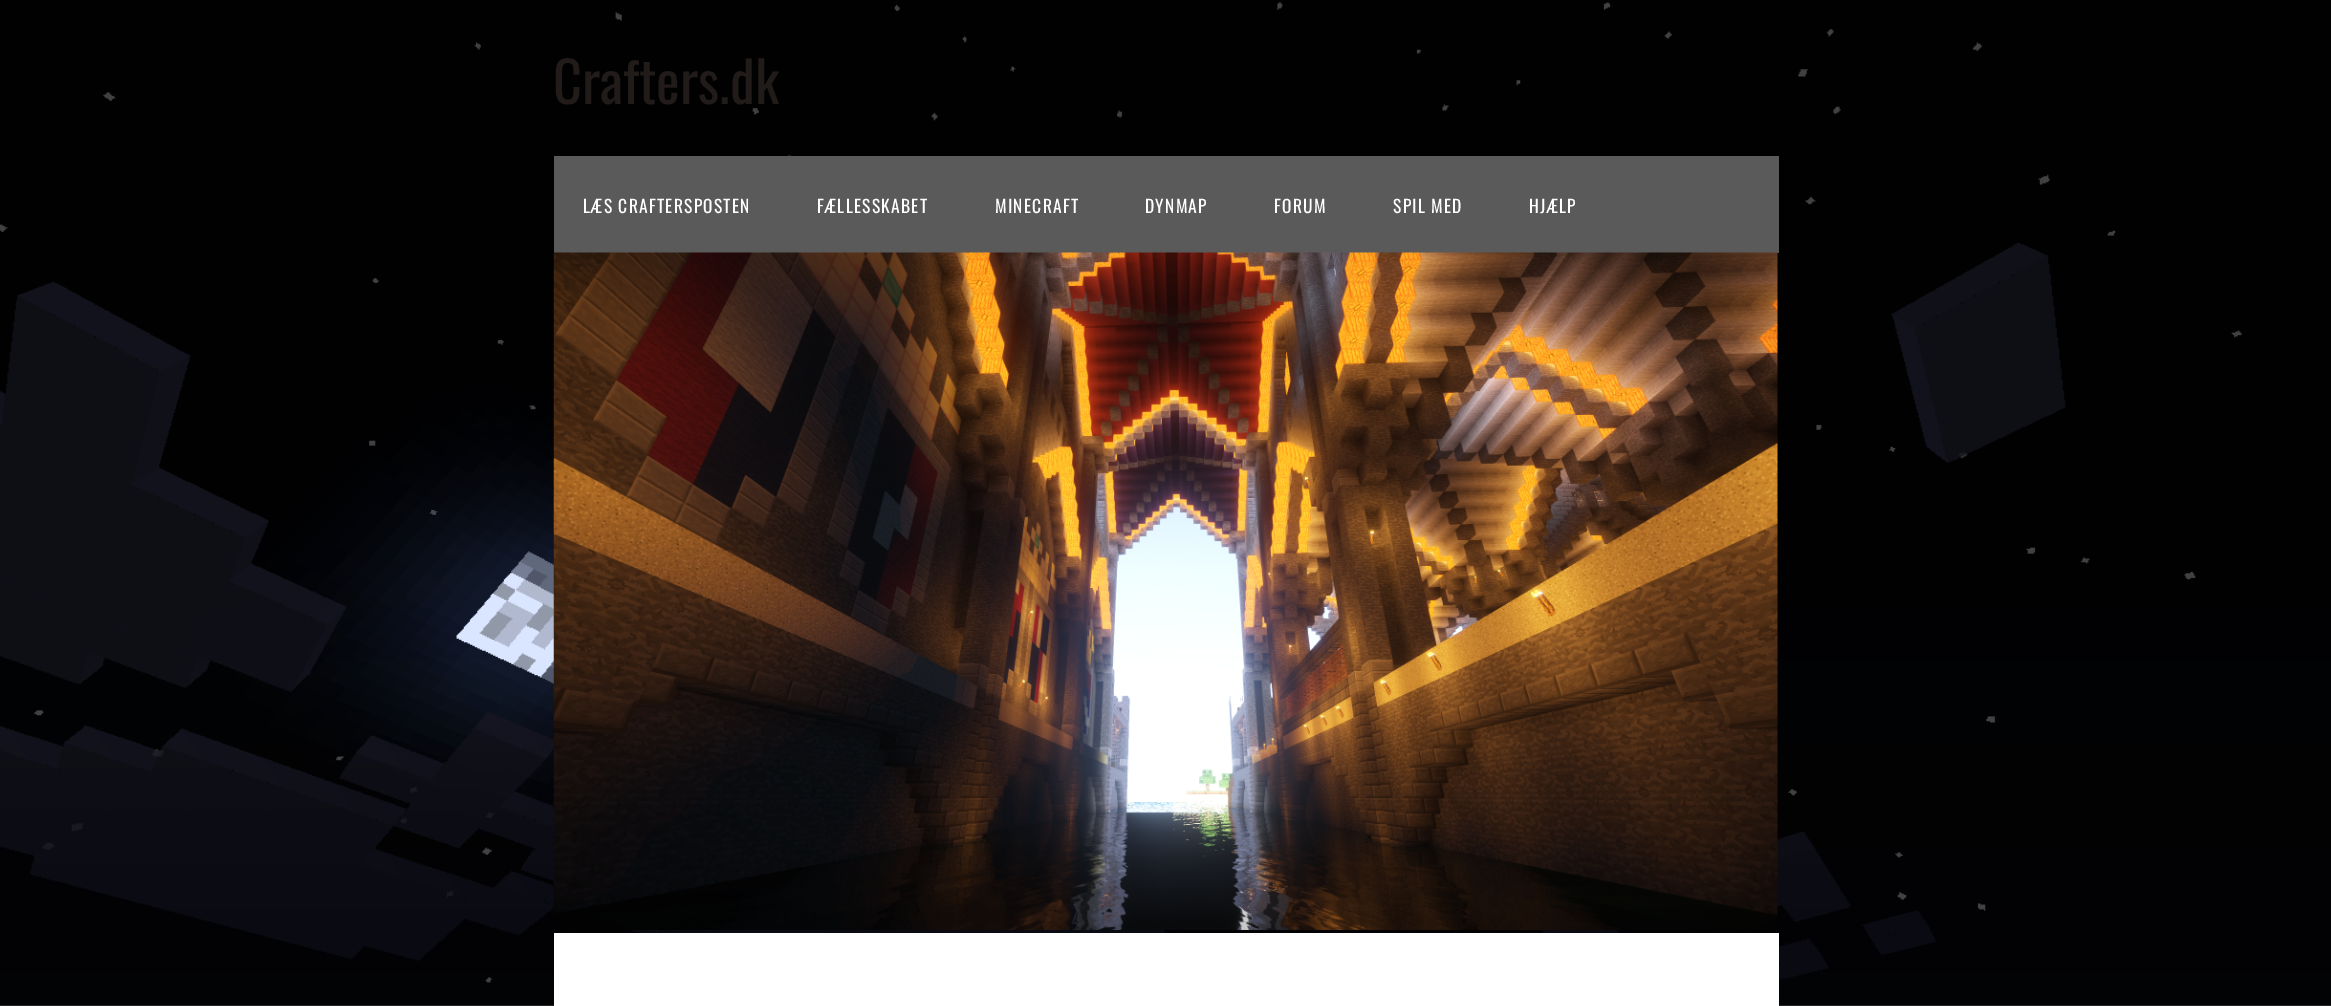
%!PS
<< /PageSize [2331 1006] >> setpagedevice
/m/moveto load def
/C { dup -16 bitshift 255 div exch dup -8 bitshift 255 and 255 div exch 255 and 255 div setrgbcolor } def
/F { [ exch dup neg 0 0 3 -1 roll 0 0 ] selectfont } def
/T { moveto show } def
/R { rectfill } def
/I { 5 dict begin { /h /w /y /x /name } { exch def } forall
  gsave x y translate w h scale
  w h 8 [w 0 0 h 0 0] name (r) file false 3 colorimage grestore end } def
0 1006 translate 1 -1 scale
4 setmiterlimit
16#FFFFFF C
0 0 2331 1006 R
(1.rgb) 0 0 2331 1006 I
/Oswald-Regular 56.25 F
16#211B1A C
(Crafters.dk) 553 104 T
16#5B5A5B C
554 156 1225 97 R
/Oswald-Regular 17.5 F
16#FFFFFF C
583 213 m 1.25 0 (LÆS CRAFTERSPOSTEN) ashow
817 213 m 1.25 0 (FÆLLESSKABET) ashow
995 213 m 1.25 0 (MINECRAFT) ashow
1145 213 m 1.25 0 (DYNMAP) ashow
1274 213 m 1.25 0 (FORUM) ashow
1393 213 m 1.25 0 (SPIL MED) ashow
1529 213 m 1.25 0 (HJÆLP) ashow
(2.rgb) 553 252 1225 678 I
554 933 1225 73 R
showpage
